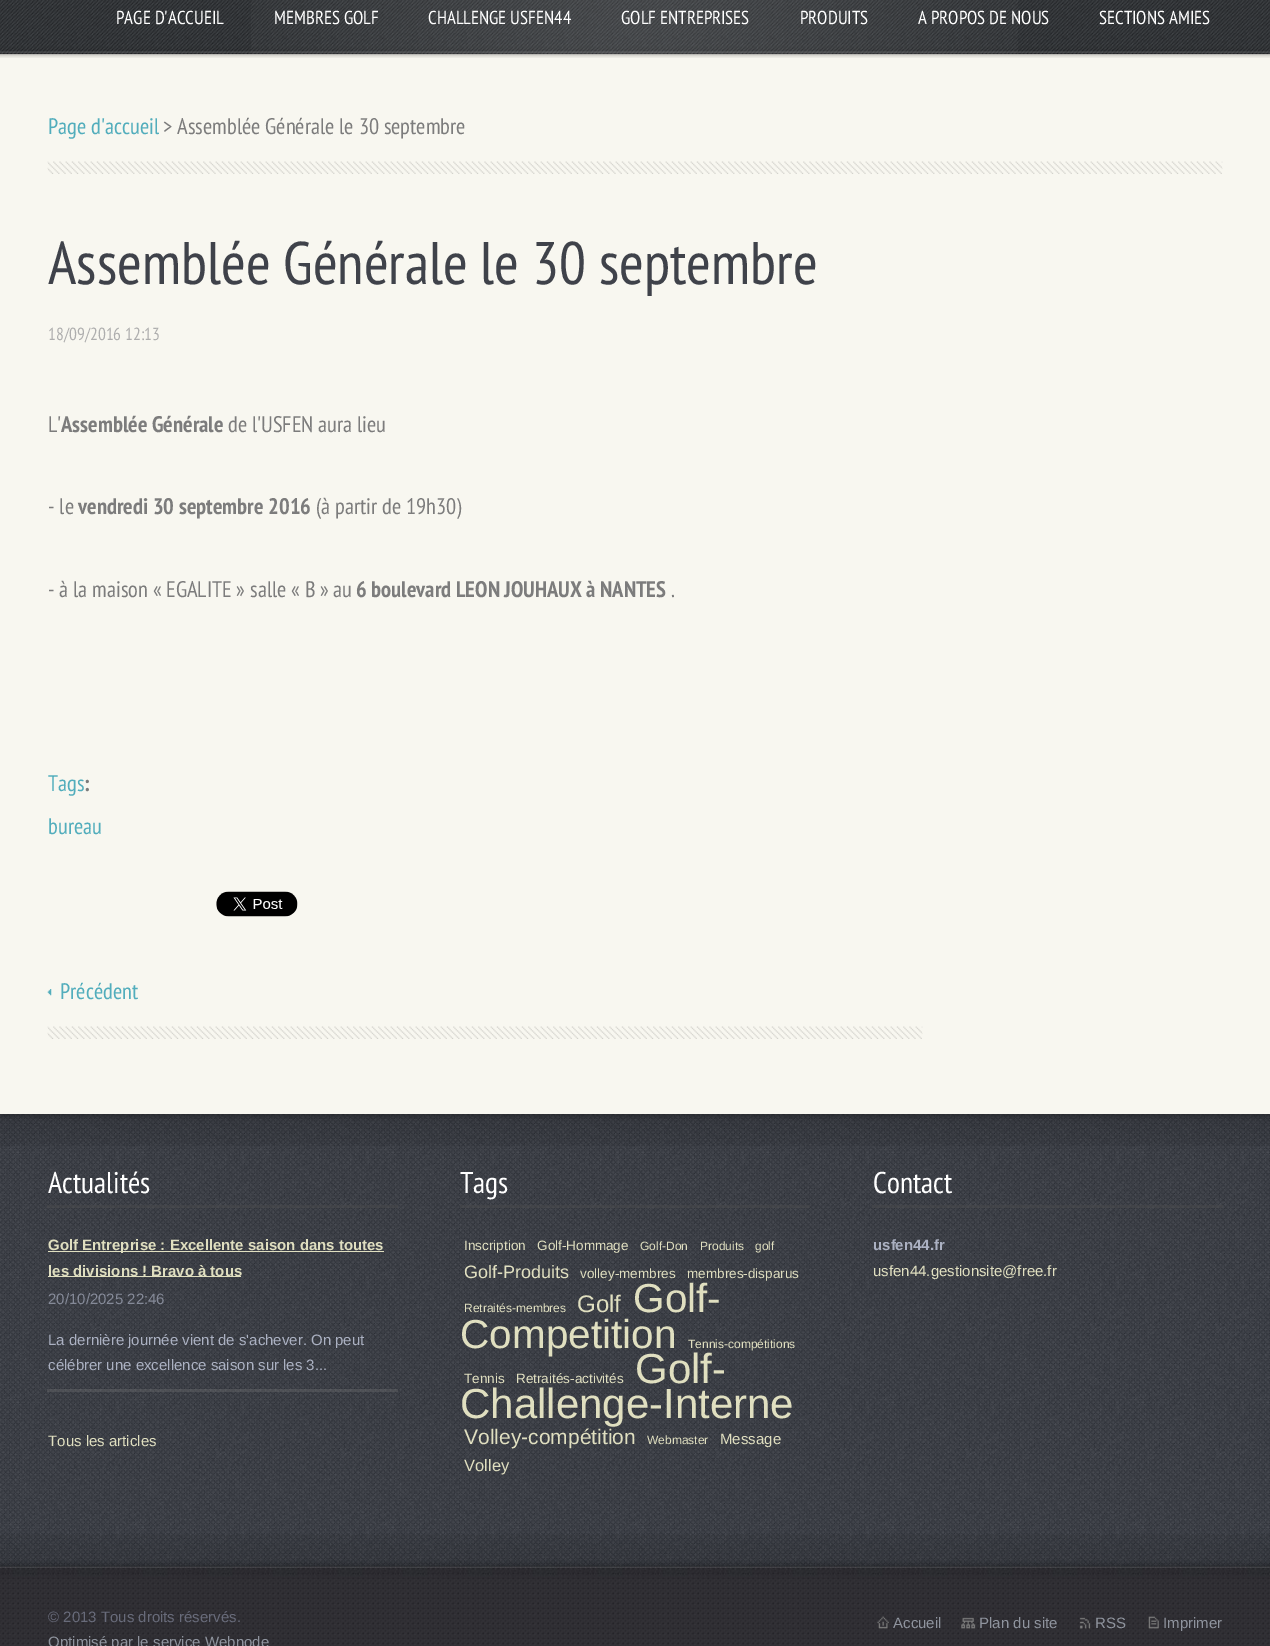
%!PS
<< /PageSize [1270 1646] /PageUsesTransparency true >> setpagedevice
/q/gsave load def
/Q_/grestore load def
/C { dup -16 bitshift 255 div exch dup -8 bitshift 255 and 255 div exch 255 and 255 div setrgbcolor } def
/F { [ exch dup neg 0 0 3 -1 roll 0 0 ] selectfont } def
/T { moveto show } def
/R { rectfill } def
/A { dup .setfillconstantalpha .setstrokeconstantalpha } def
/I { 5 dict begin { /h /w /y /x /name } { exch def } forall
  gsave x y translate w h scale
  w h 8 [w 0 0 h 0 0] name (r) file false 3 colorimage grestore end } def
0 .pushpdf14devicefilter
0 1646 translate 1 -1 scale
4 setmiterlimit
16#FFFFFF C
0 0 1270 1646 R
(1.rgb) 0 52 1270 1515 I
(2.rgb) 0 0 1270 54 I
(3.rgb) 251 0 767 54 I
/PTSansNarrow-Regular 18.75 F
(PAGE D'ACCUEIL) 116 24 T
(MEMBRES GOLF) 274 24 T
(CHALLENGE USFEN44) 428 24 T
(GOLF ENTREPRISES) 621 24 T
(PRODUITS) 800 24 T
(A PROPOS DE NOUS) 918 24 T
(SECTIONS AMIES) 1099 24 T
16#F8F7F0 C
0 54 1270 1060 R
(4.rgb) 0 54 1270 4 I
(5.rgb) 47 161 1176 13 I
/PTSansNarrow-Regular 22.5 F
16#52ADBC C
(Page d'accueil) 48 134 T
16#7C7C7C C
(> Assemblée Générale le 30 septembre) 163 134 T
(6.rgb) 47 1026 876 13 I
/PTSansNarrow-Regular 60 F
16#3F424A C
(Assemblée Générale le 30 septembre) 48 284 T
/PTSansNarrow-Regular 17.5 F
16#AEAEAE C
(18/09/2016 12:13) 48 340 T
/PTSansNarrow-Regular 22.5 F
16#7C7C7C C
(L') 48 432 T
/PTSansNarrow-Bold 22.5 F
(Assemblée Générale) 61 432 T
/PTSansNarrow-Regular 22.5 F
(de l'USFEN aura lieu) 228 432 T
(- le) 48 514 T
/PTSansNarrow-Bold 22.5 F
(vendredi 30 septembre 2016) 78 514 T
/PTSansNarrow-Regular 22.5 F
(\(à partir de 19h30\)) 316 514 T
(- à la maison « EGALITE » salle « B » au) 48 597 T
/PTSansNarrow-Bold 22.5 F
(6 boulevard LEON JOUHAUX à NANTES) 356 597 T
/PTSansNarrow-Regular 22.5 F
(.) 671 597 T
16#52ADBC C
(Tags) 48 791 T
/PTSansNarrow-Bold 22.5 F
16#7C7C7C C
(:) 84 791 T
/PTSansNarrow-Regular 22.5 F
16#52ADBC C
(bureau) 48 834 T
(7.rgb) 216 891 82 26 I
(8.rgb) 47 989 5 7 I
(Précédent) 60 999 T
(12.rgb) 0 1566 1270 80 I
(9.rgb) 0 1114 1270 453 I
(10.rgb) 0 1114 1270 32 I
0.33 A
16#505050 C
47 1205 351 3 R
/PTSansNarrow-Regular 30 F
1 A
16#FFFFFF C
(Actualités) 48 1193 T
0.27 A
16#838383 C
47 1389 351 3 R
1 A
16#E0DFC0 C
48 1251 336 1 R
/LiberationSans-Bold 15 F
(Golf Entreprise : Excellente saison dans toutes) 48 1250 T
48 1276 193 1 R
(les divisions ! Bravo à tous) 48 1276 T
/LiberationSans-Regular 15 F
16#858A98 C
(20/10/2025 22:46) 48 1304 T
16#ABB1C2 C
(La dernière journée vient de s'achever. On peut) 48 1345 T
(célébrer une excellence saison sur les 3...) 48 1370 T
16#E0DFC0 C
(Tous les articles) 48 1446 T
0.33 A
16#505050 C
460 1205 350 3 R
/PTSansNarrow-Regular 30 F
1 A
16#FFFFFF C
(Tags) 460 1193 T
/LiberationSans-Regular 13.5 F
16#E0DFC0 C
(Inscription) 464 1250 T
(Golf-Hommage) 537 1250 T
/LiberationSans-Regular 12 F
(Golf-Don) 640 1250 T
(Produits) 700 1250 T
(golf) 755 1250 T
/LiberationSans-Regular 18 F
(Golf-Produits) 464 1278 T
/LiberationSans-Regular 13.5 F
(volley-membres) 580 1278 T
(membres-disparus) 687 1278 T
/LiberationSans-Regular 12 F
(Retraités-membres) 464 1312 T
/LiberationSans-Regular 24 F
(Golf) 577 1312 T
/LiberationSans-Regular 40.5 F
(Golf-) 633 1312 T
(Competition) 460 1348 T
/LiberationSans-Regular 12 F
(Tennis-compétitions) 688 1348 T
/LiberationSans-Regular 13.5 F
(Tennis) 464 1383 T
(Retraités-activités) 516 1383 T
/LiberationSans-Regular 42 F
(Golf-) 635 1383 T
(Challenge-Interne) 460 1418 T
/LiberationSans-Regular 21 F
(Volley-compétition) 464 1444 T
/LiberationSans-Regular 12 F
(Webmaster) 647 1444 T
/LiberationSans-Regular 15 F
(Message) 720 1444 T
/LiberationSans-Regular 16.5 F
(Volley) 464 1471 T
0.33 A
16#505050 C
872 1205 351 3 R
/PTSansNarrow-Regular 30 F
1 A
16#FFFFFF C
(Contact) 873 1193 T
/LiberationSans-Bold 15 F
16#ABB1C2 C
(usfen44.fr) 873 1250 T
/LiberationSans-Regular 15 F
16#E0DFC0 C
(usfen44.gestionsite@free.fr) 873 1276 T
(11.rgb) 0 1534 1270 33 I
q
48 1604 575 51 rectclip
16#686B7A C
(© 2013 Tous droits réservés.) 48 1622 T
Q_
16#8F949E C
(Optimisé par le service Webnode) 48 1647 T
(13.rgb) 877 1616 12 13 I
(Accueil) 893 1628 T
(14.rgb) 961 1617 15 12 I
(Plan du site) 979 1628 T
(15.rgb) 1079 1617 12 12 I
(RSS) 1095 1628 T
(16.rgb) 1148 1616 11 13 I
(Imprimer) 1163 1628 T
.poppdf14devicefilter showpage
